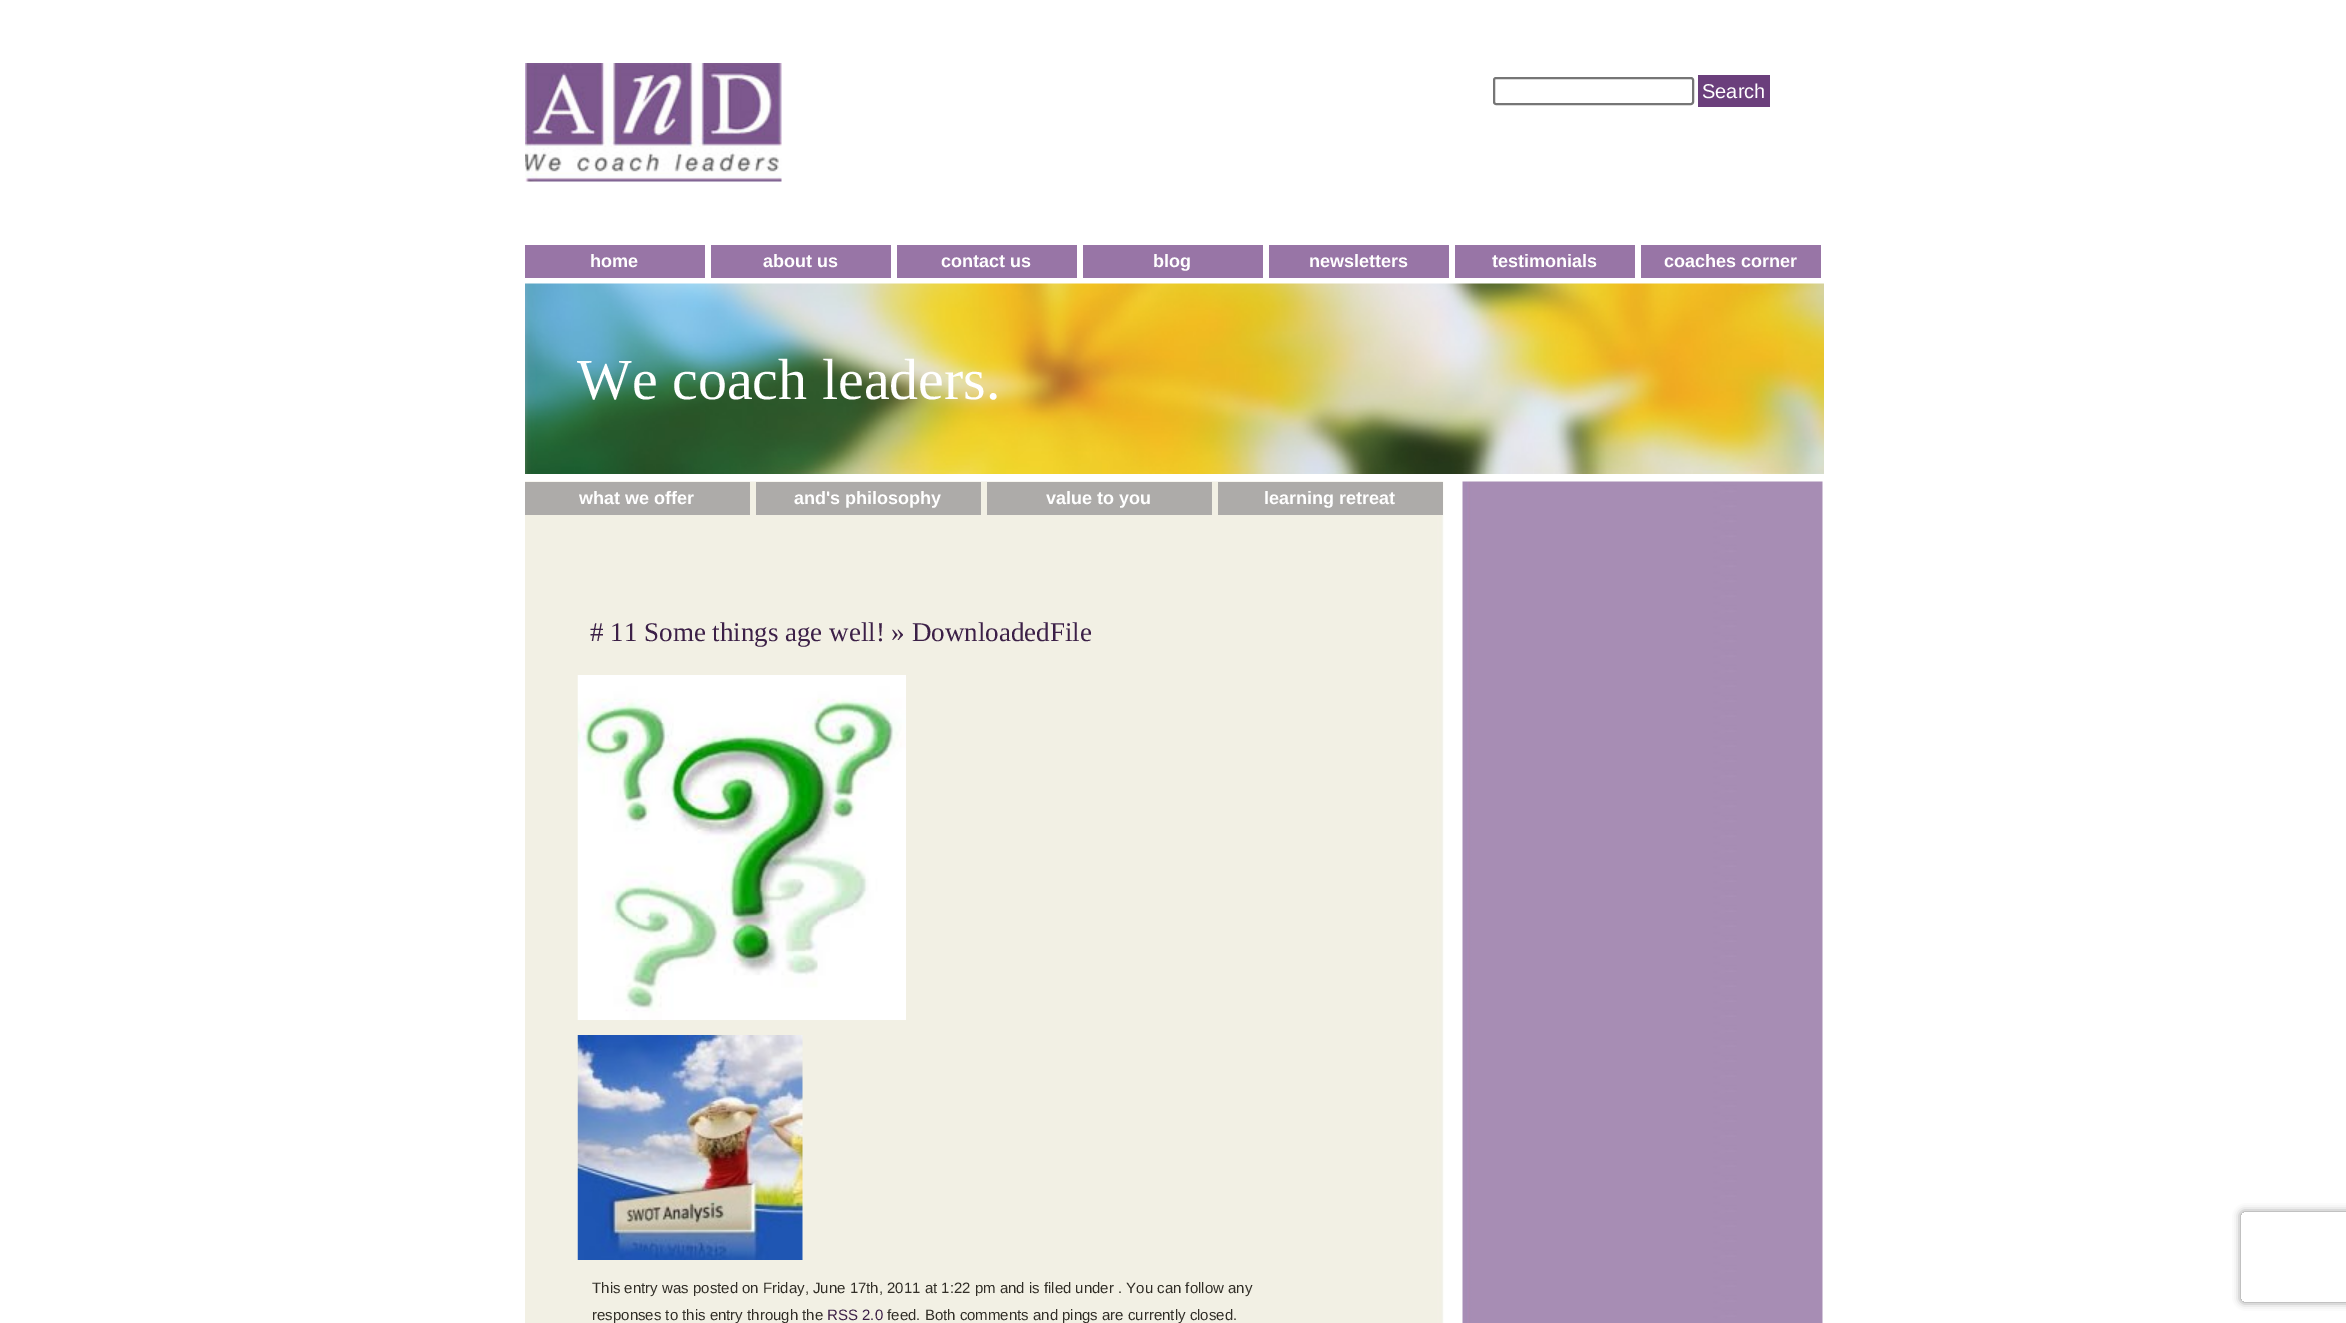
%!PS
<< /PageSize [2346 1323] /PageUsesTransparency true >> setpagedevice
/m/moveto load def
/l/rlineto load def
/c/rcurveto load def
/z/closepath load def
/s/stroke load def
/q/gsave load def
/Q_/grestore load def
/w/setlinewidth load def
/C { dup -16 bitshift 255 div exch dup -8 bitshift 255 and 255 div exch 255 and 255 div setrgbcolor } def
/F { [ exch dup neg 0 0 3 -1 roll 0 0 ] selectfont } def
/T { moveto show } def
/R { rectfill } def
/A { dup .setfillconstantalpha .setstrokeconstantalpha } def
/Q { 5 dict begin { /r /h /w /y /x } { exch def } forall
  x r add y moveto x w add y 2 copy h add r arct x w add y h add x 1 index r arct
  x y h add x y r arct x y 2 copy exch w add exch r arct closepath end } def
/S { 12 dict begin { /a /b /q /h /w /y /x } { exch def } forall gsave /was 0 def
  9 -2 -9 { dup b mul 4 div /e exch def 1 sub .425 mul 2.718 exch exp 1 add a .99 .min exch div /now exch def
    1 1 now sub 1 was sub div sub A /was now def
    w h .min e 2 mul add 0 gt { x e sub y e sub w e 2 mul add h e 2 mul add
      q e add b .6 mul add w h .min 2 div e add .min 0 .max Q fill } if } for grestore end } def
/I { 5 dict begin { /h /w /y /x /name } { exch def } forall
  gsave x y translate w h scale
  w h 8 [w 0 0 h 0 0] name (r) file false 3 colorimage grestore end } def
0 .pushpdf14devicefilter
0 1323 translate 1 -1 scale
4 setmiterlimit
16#FFFFFF C
0 0 2346 1323 R
(1.rgb) 525 63 257 119 I
16#767676 C
2 w
1494 78 199 26 2 Q s
16#6B3F7C C
1698 75 72 32 R
/LiberationSans-Regular 20 F
16#FFFFFF C
(Search) 1702 98 T
16#9875A6 C
525 245 180 33 R
/LiberationSans-Bold 18 F
16#FFFFFF C
(home) 590 267 T
16#9875A6 C
711 245 180 33 R
16#FFFFFF C
(about us) 763 267 T
16#9875A6 C
897 245 180 33 R
16#FFFFFF C
(contact us) 941 267 T
16#9875A6 C
1083 245 180 33 R
16#FFFFFF C
(blog) 1153 267 T
16#9875A6 C
1269 245 180 33 R
16#FFFFFF C
(newsletters) 1309 267 T
16#9875A6 C
1455 245 180 33 R
16#FFFFFF C
(testimonials) 1492 267 T
16#9875A6 C
1641 245 180 33 R
16#FFFFFF C
(coaches corner) 1664 267 T
(2.rgb) 525 283 1299 191 I
/LiberationSerif-Regular 58 F
(We coach leaders.) 577 399 T
(3.rgb) 525 481 1298 842 I
16#ADABA9 C
525 482 225 33 R
/LiberationSans-Bold 18 F
16#FFFFFF C
(what we offer) 579 504 T
16#ADABA9 C
756 482 225 33 R
16#FFFFFF C
(and's philosophy) 794 504 T
16#ADABA9 C
987 482 225 33 R
16#FFFFFF C
(value to you) 1046 504 T
16#ADABA9 C
1218 482 225 33 R
16#FFFFFF C
(learning retreat) 1264 504 T
/LiberationSerif-Regular 27 F
16#3C2047 C
(# 11 Some things age well! » DownloadedFile) 590 641 T
(4.rgb) 577 675 329 345 I
(5.rgb) 577 1035 226 225 I
/LiberationSans-Regular 15 F
16#312E27 C
(This entry was posted on Friday, June 17th, 2011 at 1:22 pm and is filed under . You can follow any) 592 1293 T
(responses to this entry through the) 592 1320 T
16#3C2047 C
(RSS 2.0) 827 1320 T
16#312E27 C
(feed. Both comments and pings are currently closed.) 887 1320 T
q
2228 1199 m 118 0 l 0 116 l -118 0 l z 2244 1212 m 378 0 l 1.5 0 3 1.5 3 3 c 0 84 l 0 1.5 -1.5 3 -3 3 c -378 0 l -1.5 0 -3 -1.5 -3 -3 c 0 -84 l 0 -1.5 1.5 -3 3 -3 c z eoclip newpath
16#808080 C
2241 1212 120 90 3 4 1 S
Q_
.poppdf14devicefilter showpage
